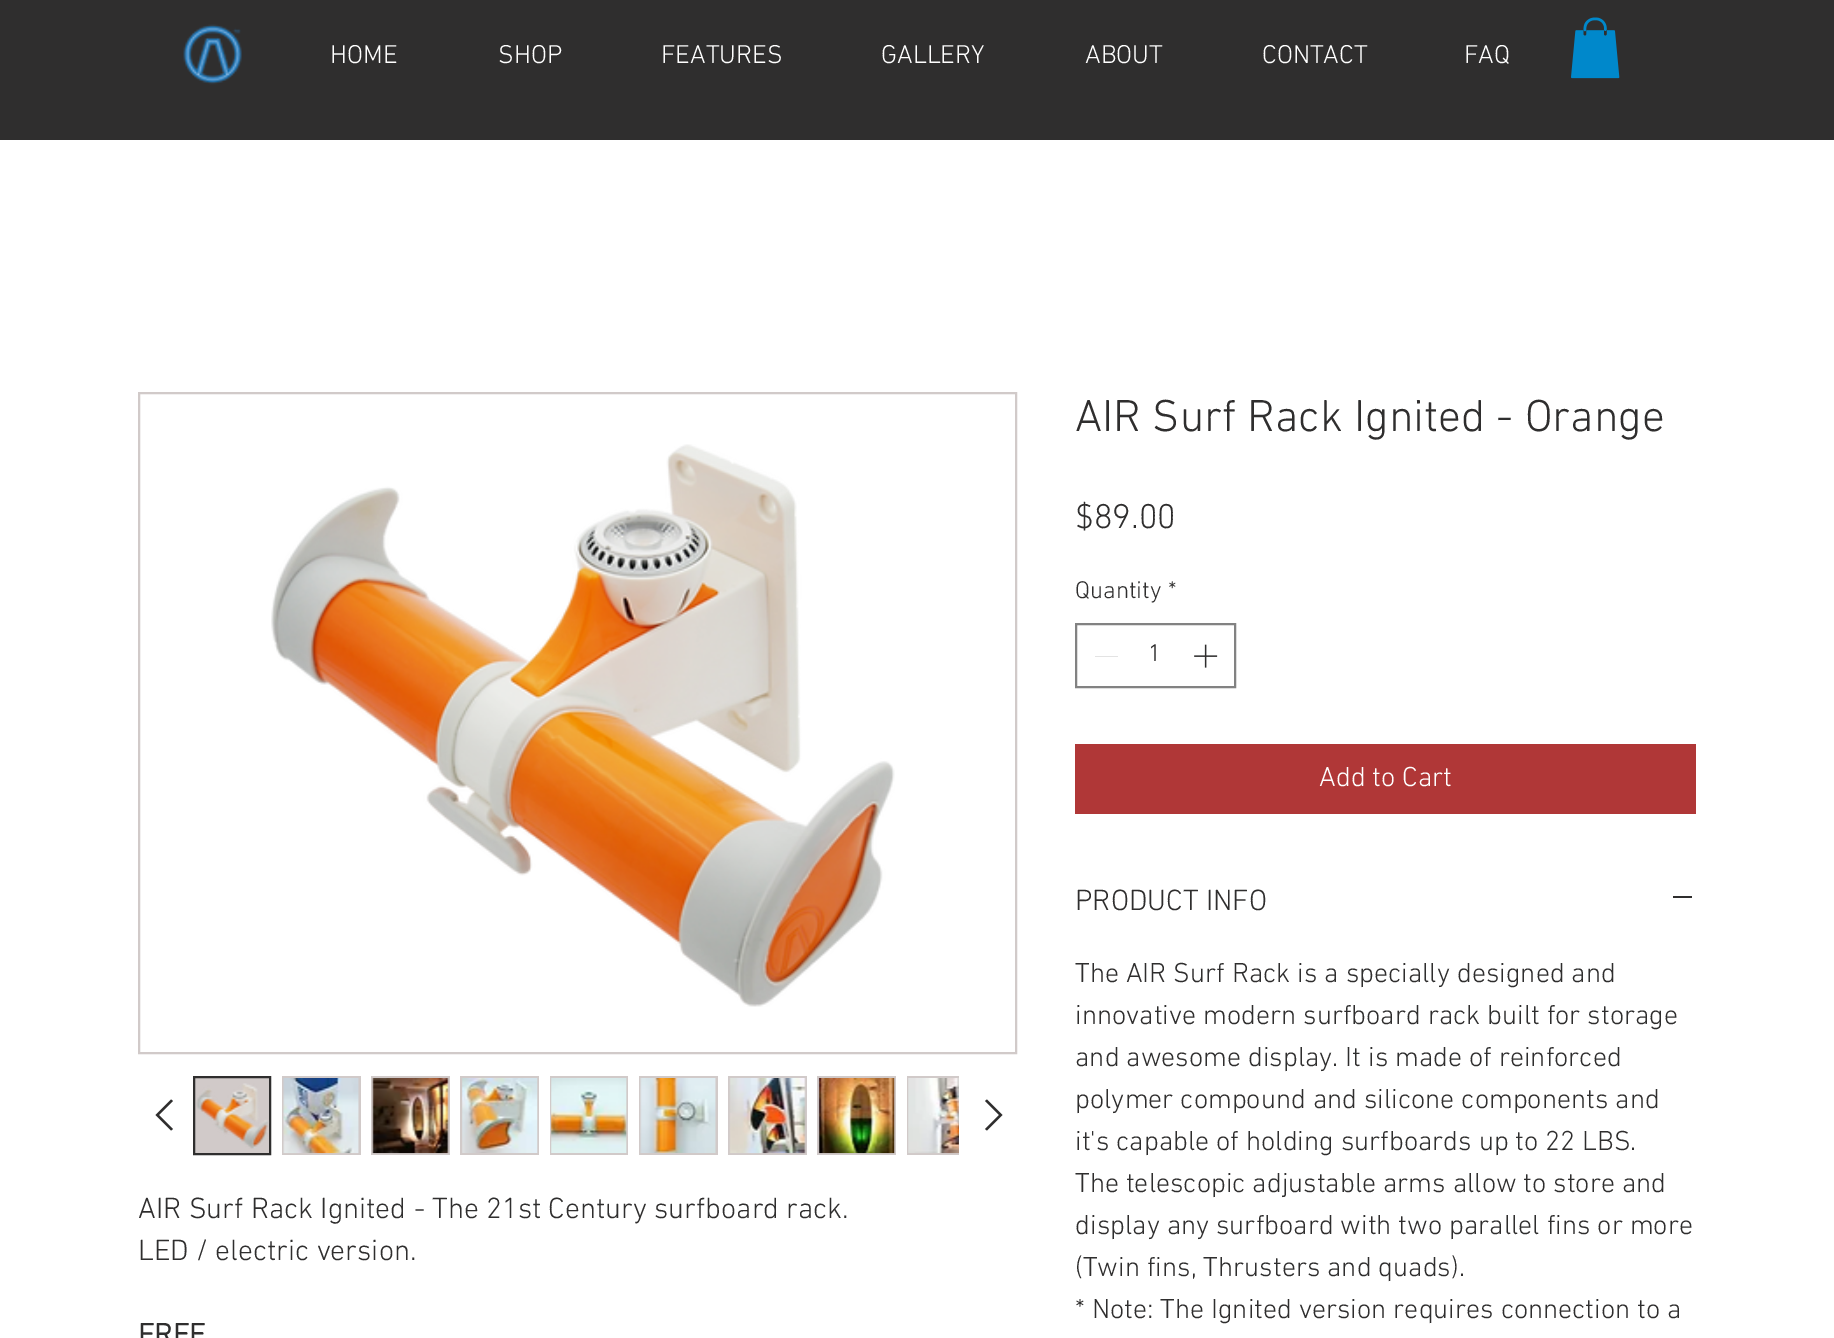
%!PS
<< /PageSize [1834 1338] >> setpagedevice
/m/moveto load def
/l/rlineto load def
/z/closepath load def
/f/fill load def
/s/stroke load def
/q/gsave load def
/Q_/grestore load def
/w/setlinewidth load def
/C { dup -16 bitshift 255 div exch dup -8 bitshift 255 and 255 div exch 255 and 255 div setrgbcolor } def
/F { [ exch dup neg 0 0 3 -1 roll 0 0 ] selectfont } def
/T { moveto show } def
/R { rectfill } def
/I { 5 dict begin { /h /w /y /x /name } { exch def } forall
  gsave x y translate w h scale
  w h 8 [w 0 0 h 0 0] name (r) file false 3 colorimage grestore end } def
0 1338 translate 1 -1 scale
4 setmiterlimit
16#FFFFFF C
0 0 1834 1338 R
16#2F2E2E C
0 0 1834 140 R
(1.rgb) 183 24 59 61 I
/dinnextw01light-Light 26.25 F
16#FFFFFF C
(HOME) 330 63 T
(SHOP) 498 63 T
(FEATURES) 661 63 T
(GALLERY) 881 63 T
(ABOUT) 1085 63 T
(CONTACT) 1262 63 T
(FAQ) 1464 63 T
(2.rgb) 1571 17 49 62 I
16#D1CAC9 C
2 w
139 393 877 660 rectstroke
(3.rgb) 271 444 624 563 I
16#2F2E2E C
171 1099.5 m 2 1.5 l -14 14 l 14 14 l -2 1.5 l -15.5 -15.5 l z eofill
16#D1CAC9 C
194 1077 m 76 0 l 0 77 l -76 0 l z q f Q_
16#2F2E2E C
s
(4.rgb) 196 1083 74 66 I
16#D1CAC9 C
282 1076 79 79 R
(5.rgb) 283 1078 76 76 I
371 1076 79 79 R
(6.rgb) 372 1078 77 76 I
460 1076 79 79 R
(7.rgb) 462 1078 76 75 I
550 1076 78 79 R
(8.rgb) 551 1078 76 75 I
639 1076 79 79 R
(9.rgb) 640 1078 76 75 I
728 1076 79 79 R
(10.rgb) 729 1078 77 76 I
817 1076 79 79 R
(11.rgb) 818 1078 77 76 I
907 1076 52 79 R
(12.rgb) 908 1078 51 76 I
16#2F2E2E C
987 1099.5 m 15.5 15.5 l -15.5 15.5 l -2 -1.5 l 14 -14 l -14 -14 l z eofill
/dinnextw01light-Light 29.75 F
(AIR Surf Rack Ignited - The 21st Century surfboard rack.) 138 1218 T
(LED / electric version.) 138 1260 T
/dinnextw01light-Bold 29.75 F
(FREE) 138 1344 T
/dinnextw01light-Light 45.5 F
(AIR Surf Rack Ignited - Orange) 1075 431 T
/dinnextw01light-Light 35 F
($89.00) 1075 528 T
/dinnextw01light-Light 24.5 F
(Quantity) 1075 598 T
(*) 1168 598 T
16#828282 C
1076 624 159 63 rectstroke
16#E3E3E3 C
1095 656 23 1 R
16#2F2E2E C
(1) 1148 661 T
(13.rgb) 1194 644 24 24 I
16#B03737 C
1075 744 621 70 R
/dinnextw01light-Light 28 F
16#FFFFFF C
(Add to Cart) 1319 786 T
/dinnextw01light-Light 29.75 F
16#2F2E2E C
(PRODUCT INFO) 1075 910 T
1673 896 19 2 R
/dinnextw01light-Light 28 F
(The AIR Surf Rack is a specially designed and) 1075 982 T
(innovative modern surfboard rack built for storage) 1075 1024 T
(and awesome display. It is made of reinforced) 1075 1066 T
(polymer compound and silicone components and) 1075 1108 T
(it's capable of holding surfboards up to 22 LBS.) 1075 1150 T
(The telescopic adjustable arms allow to store and) 1075 1192 T
(display any surfboard with two parallel fins or more) 1075 1234 T
(\(Twin fins, Thrusters and quads\).) 1075 1276 T
(* Note: The Ignited version requires connection to a) 1075 1318 T
showpage
